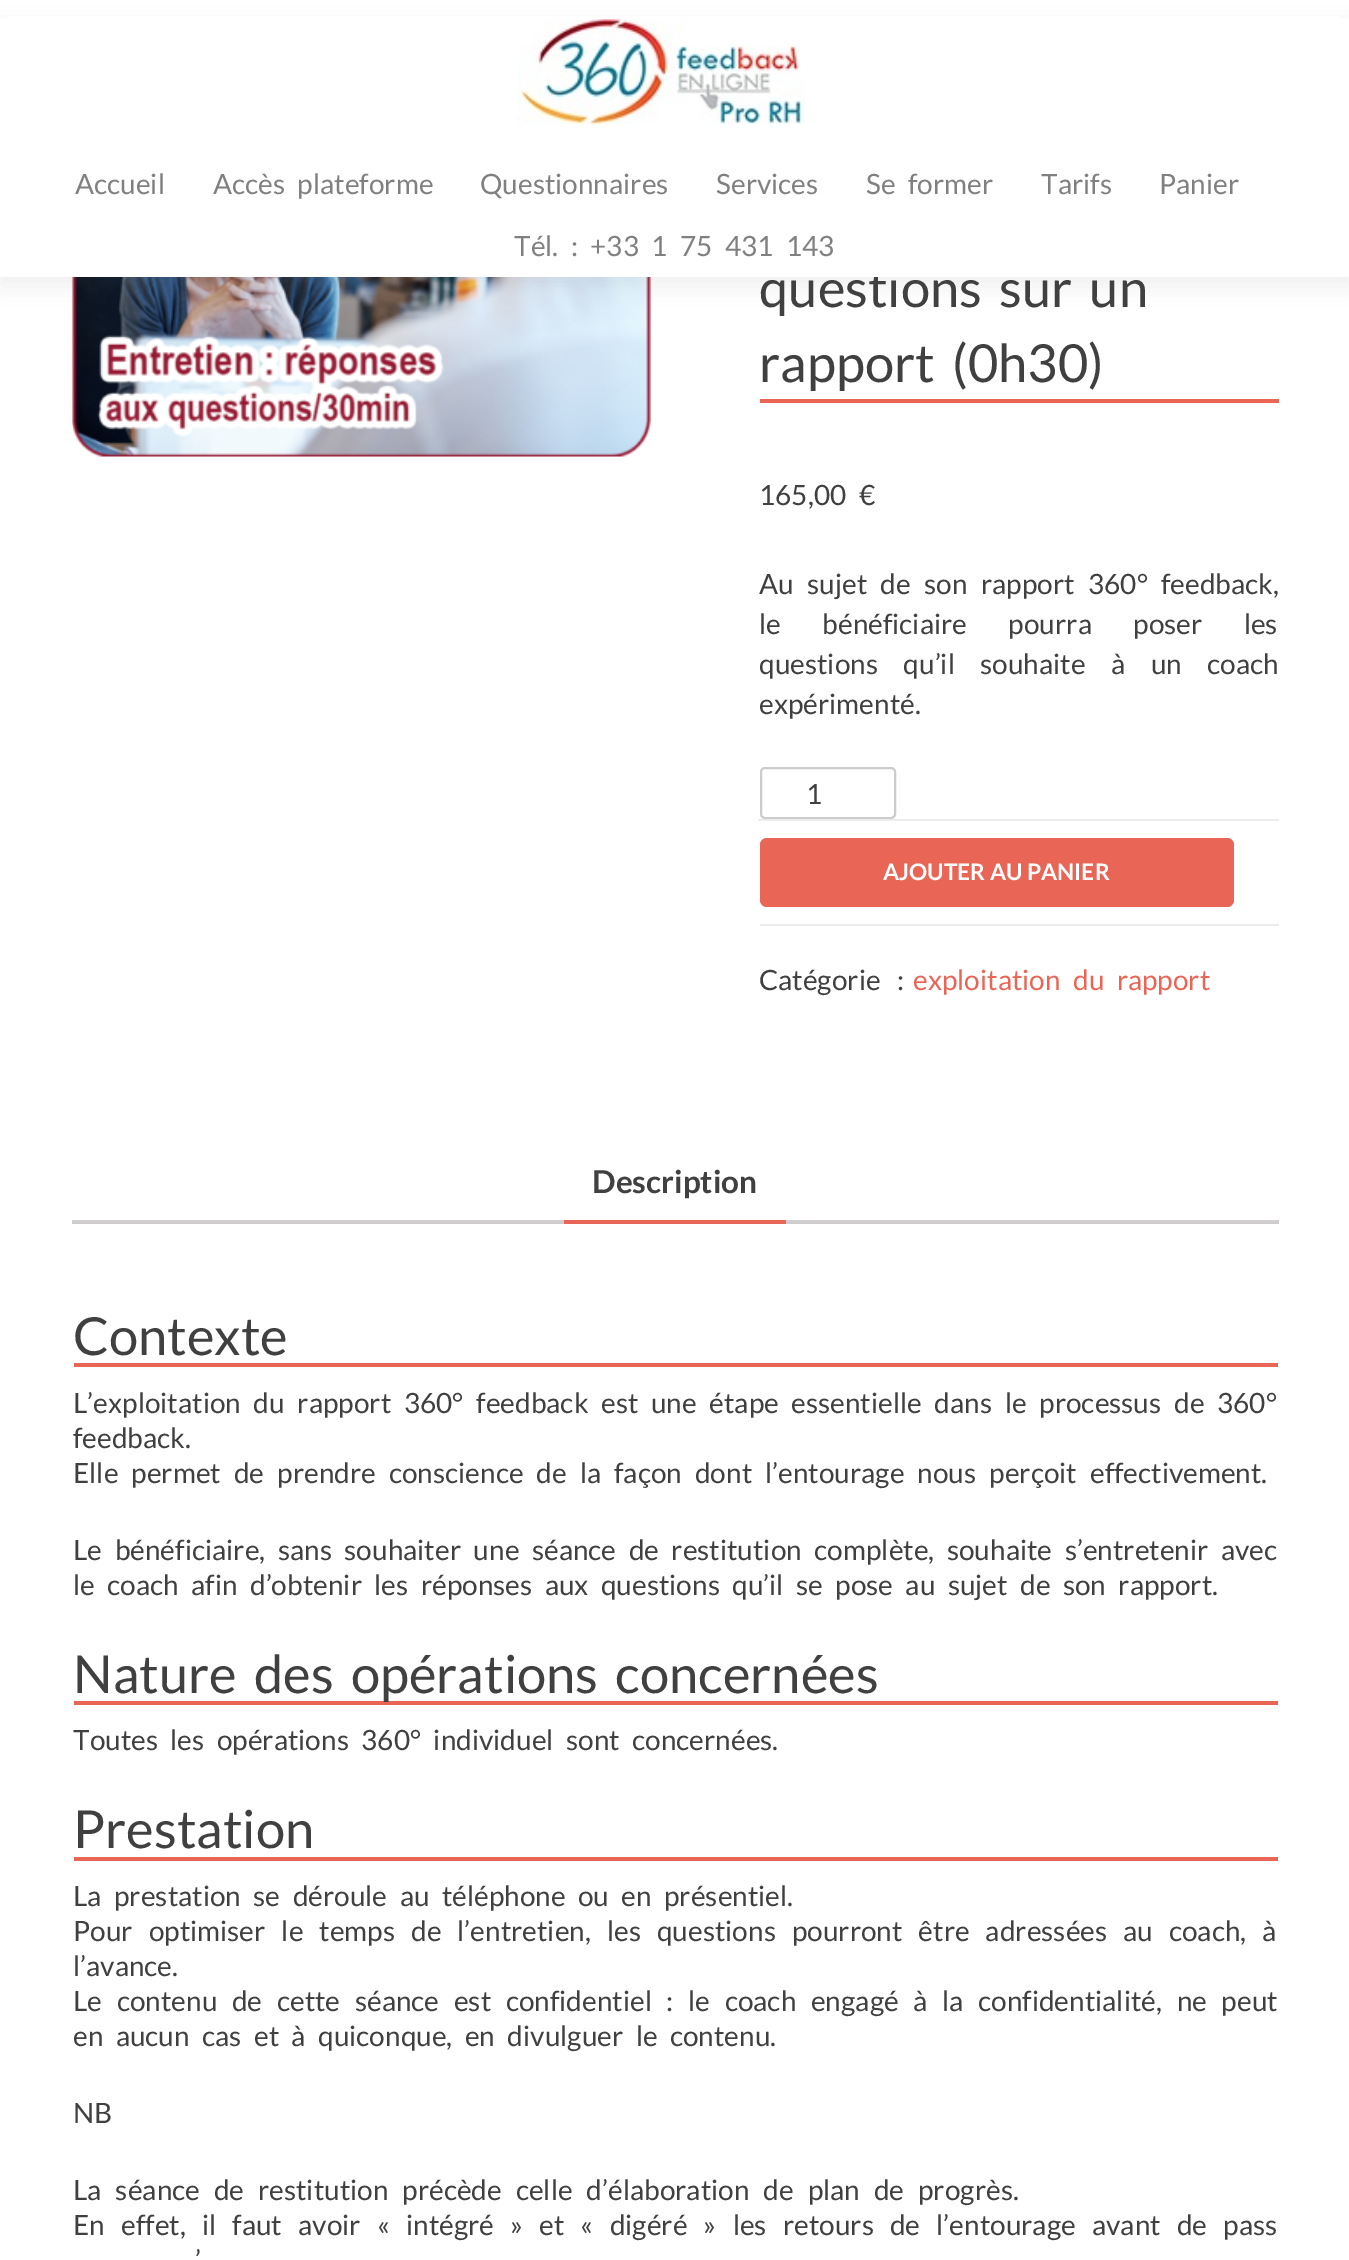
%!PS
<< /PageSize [1349 2260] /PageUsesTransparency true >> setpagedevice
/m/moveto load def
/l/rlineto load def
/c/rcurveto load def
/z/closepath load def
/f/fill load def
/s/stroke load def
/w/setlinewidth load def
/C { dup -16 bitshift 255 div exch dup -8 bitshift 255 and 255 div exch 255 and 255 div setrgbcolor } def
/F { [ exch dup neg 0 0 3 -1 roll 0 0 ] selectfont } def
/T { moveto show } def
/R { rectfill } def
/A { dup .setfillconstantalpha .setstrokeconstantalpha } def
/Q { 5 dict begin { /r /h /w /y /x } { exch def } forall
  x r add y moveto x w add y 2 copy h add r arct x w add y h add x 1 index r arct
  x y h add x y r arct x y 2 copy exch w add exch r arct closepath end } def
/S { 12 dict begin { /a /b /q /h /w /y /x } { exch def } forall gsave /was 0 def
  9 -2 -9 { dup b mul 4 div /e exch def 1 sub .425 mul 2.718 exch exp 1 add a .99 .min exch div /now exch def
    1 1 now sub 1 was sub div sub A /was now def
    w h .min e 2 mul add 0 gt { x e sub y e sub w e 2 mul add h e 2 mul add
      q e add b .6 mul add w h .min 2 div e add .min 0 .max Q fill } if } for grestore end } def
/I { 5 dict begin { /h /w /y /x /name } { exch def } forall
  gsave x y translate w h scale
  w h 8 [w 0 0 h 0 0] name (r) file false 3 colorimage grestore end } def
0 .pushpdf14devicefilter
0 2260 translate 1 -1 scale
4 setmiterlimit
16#FFFFFF C
0 0 1349 2260 R
(2.rgb) 71 277 580 180 I
16#323232 C
0 26 1349 259 0 9.5 .08 S
16#FFFFFF C
9 16 1331 2 R
/Lato-Regular 52.5 F
16#404040 C
759 307 m 7 0 32 (questions sur un) widthshow
16#FFFFFF C
0 18 1349 259 R
(1.rgb) 518 19 287 106 I
/Lato-Regular 28 F
16#808080 C
(Accueil) 75 194 T
213 194 m 7 0 32 (Accès plateforme) widthshow
(Questionnaires) 480 194 T
(Services) 716 194 T
866 194 m 7 0 32 (Se former) widthshow
(Tarifs) 1041 194 T
(Panier) 1159 194 T
514 256 m 7 0 32 (Tél. : +33 1 75 431 143) widthshow
16#E96656 C
760 399 519 4 R
/Lato-Regular 52.5 F
16#404040 C
759 382 m 7 0 32 (rapport \(0h30\)) widthshow
/Lato-Regular 28 F
(165,00) 759 505 T
(€) 859 505 T
759 594 m 8 0 32 (Au sujet de son rapport 360° feedback,) widthshow
759 634 m 36 0 32 (le bénéficiaire pourra poser les) widthshow
759 674 m 20 0 32 (questions qu’il souhaite à un coach) widthshow
(expérimenté.) 759 714 T
16#CCCCCC C
2 w
761 768 134 50 4 Q s
16#404040 C
(1) 806 804 T
16#EDEDED C
760 924 519 2 R
758 819 521 2 R
16#E96656 C
760 838 474 69 7 Q f
/Lato-Bold 22.75 F
16#FFFFFF C
(AJOUTER AU PANIER) 883 880 T
/Lato-Regular 28 F
16#404040 C
(Catégorie) 759 990 T
(:) 897 990 T
16#E96656 C
913 990 m 7 0 32 (exploitation du rapport) widthshow
16#CCCCCC C
72 1222 1207 2 R
16#D3CED2 C
72 1220 1207 2 R
16#FFFFFF C
571 1145 m 208 0 l 4 0 7 3 7 7 c 0 71 l -222 0 l 0 -71 l 0 -4 3 -7 7 -7 c z f
16#E96656 C
564 1220 222 4 R
/Lato-Bold 31.5 F
16#404040 C
(Description) 592 1193 T
16#E96656 C
74 1363 1204 4 R
/Lato-Regular 52.5 F
16#404040 C
(Contexte) 73 1355 T
/Lato-Regular 28 F
73 1413 m 7.25 0 32 (L’exploitation du rapport 360° feedback est une étape essentielle dans le processus de 360°) widthshow
(feedback.) 73 1448 T
73 1483 m 7.6 0 32 (Elle permet de prendre conscience de la façon dont l’entourage nous perçoit effectivement.) widthshow
73 1560 m 7.1 0 32 (Le bénéficiaire, sans souhaiter une séance de restitution complète, souhaite s’entretenir avec) widthshow
73 1595 m 7 0 32 (le coach afin d’obtenir les réponses aux questions qu’il se pose au sujet de son rapport.) widthshow
16#E96656 C
74 1701 1204 4 R
/Lato-Regular 52.5 F
16#404040 C
73 1693 m 7 0 32 (Nature des opérations concernées) widthshow
/Lato-Regular 28 F
73 1750 m 7 0 32 (Toutes les opérations 360° individuel sont concernées.) widthshow
16#E96656 C
74 1857 1204 4 R
/Lato-Regular 52.5 F
16#404040 C
(Prestation) 73 1848 T
/Lato-Regular 28 F
73 1906 m 7 0 32 (La prestation se déroule au téléphone ou en présentiel.) widthshow
73 1941 m 10.6 0 32 (Pour optimiser le temps de l’entretien, les questions pourront être adressées au coach, à) widthshow
(l’avance.) 73 1976 T
73 2011 m 9.25 0 32 (Le contenu de cette séance est confidentiel : le coach engagé à la confidentialité, ne peut) widthshow
73 2046 m 7 0 32 (en aucun cas et à quiconque, en divulguer le contenu.) widthshow
(NB) 73 2123 T
73 2200 m 8.5 0 32 (La séance de restitution précède celle d’élaboration de plan de progrès.) widthshow
73 2235 m 10.75 0 32 (En effet, il faut avoir « intégré » et « digéré » les retours de l’entourage avant de pass) widthshow
195 2270 m 7 0 32 (’) widthshow
.poppdf14devicefilter showpage
